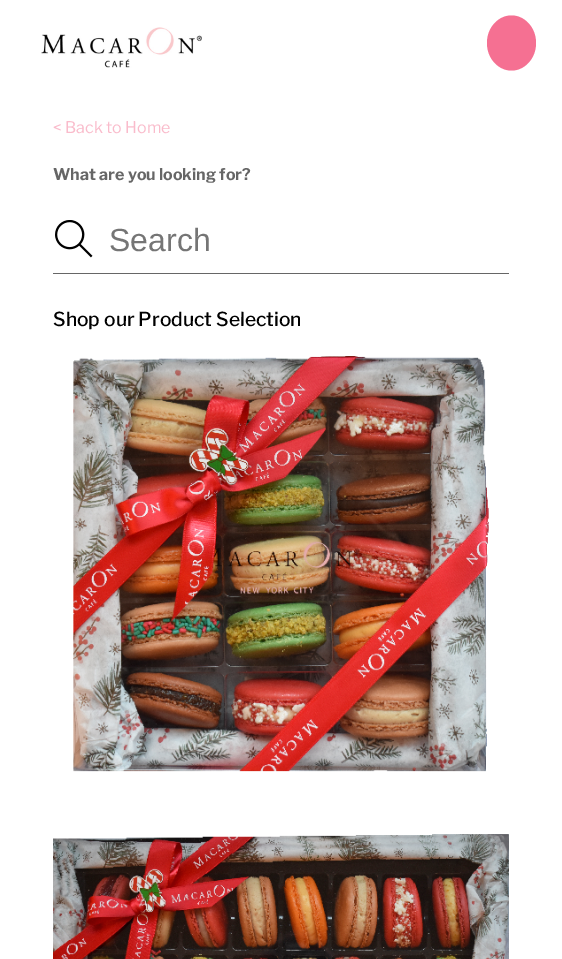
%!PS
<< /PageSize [562 959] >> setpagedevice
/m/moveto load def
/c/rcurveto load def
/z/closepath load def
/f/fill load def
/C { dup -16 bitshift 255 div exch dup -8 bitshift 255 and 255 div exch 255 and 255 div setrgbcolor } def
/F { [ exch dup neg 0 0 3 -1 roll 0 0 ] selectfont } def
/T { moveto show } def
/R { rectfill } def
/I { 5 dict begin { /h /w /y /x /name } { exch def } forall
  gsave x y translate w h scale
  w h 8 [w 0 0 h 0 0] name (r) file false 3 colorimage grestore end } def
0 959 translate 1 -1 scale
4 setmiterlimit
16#FFFFFF C
0 0 562 959 R
(1.rgb) 41 27 161 41 I
16#F57092 C
511.5 15.5 m 13.5 0 24.5 12.5 24.5 27.5 c 0 15 -11 27.5 -24.5 27.5 c -13.5 0 -24.5 -12.5 -24.5 -27.5 c 0 -15 11 -27.5 24.5 -27.5 c z f
/LibreFranklin-Regular 16 F
16#FABBCB C
(< Back to Home) 53 133 T
/LibreFranklin-Bold 16 F
16#666666 C
(What are you looking for?) 53 180 T
53 273 456 1 R
(2.rgb) 55 220 38 38 I
/LiberationSans-Regular 32 F
16#757575 C
(Search) 109 251 T
/LibreFranklin-Medium 19.25 F
16#000000 C
(Shop our Product Selection) 53 326 T
(3.rgb) 73 356 416 416 I
(4.rgb) 53 834 456 125 I
showpage
